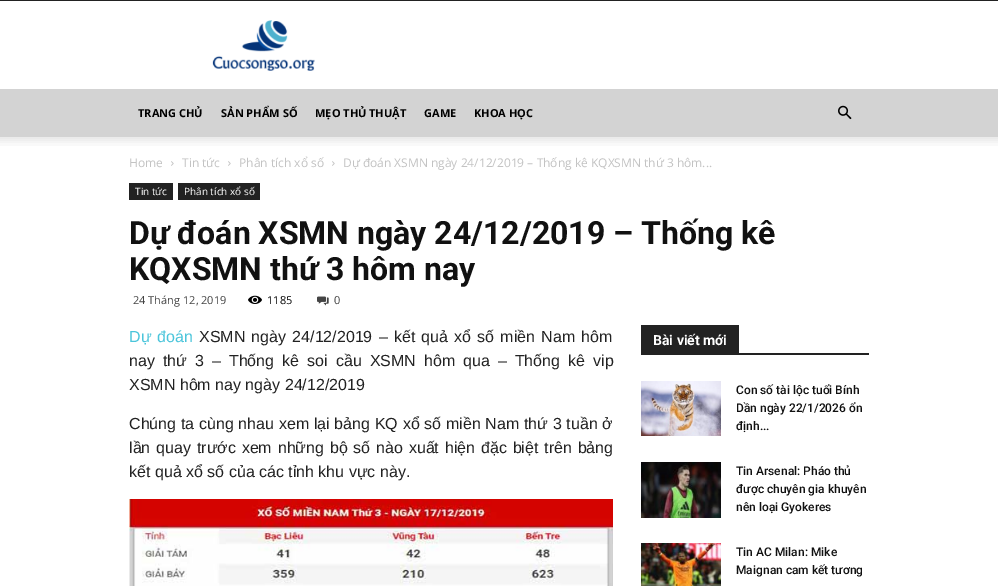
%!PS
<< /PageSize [998 586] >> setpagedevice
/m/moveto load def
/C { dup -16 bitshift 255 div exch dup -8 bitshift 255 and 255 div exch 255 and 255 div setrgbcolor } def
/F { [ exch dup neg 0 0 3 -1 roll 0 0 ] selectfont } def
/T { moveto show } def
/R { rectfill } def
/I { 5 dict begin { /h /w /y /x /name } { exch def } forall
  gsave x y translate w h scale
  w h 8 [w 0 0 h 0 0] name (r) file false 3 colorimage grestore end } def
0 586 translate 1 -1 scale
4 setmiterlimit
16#FFFFFF C
0 0 998 586 R
16#222222 C
0 0 998 1 R
(1.rgb) 212 20 103 51 I
16#D3D3D3 C
0 89 998 48 R
/OpenSans-Bold 11 F
16#000000 C
(TRANG CHỦ) 138 117 T
(SẢN PHẨM SỐ) 221 117 T
(MẸO THỦ THUẬT) 315 117 T
(GAME) 424 117 T
(KHOA HỌC) 474 117 T
(2.rgb) 838 105 14 15 I
(3.rgb) 0 137 998 9 I
/OpenSans-Regular 12 F
16#C3C3C3 C
(Home) 129 167 T
(4.rgb) 171 161 3 5 I
(Tin tức) 182 167 T
(4.rgb) 228 161 3 5 I
(Phân tích xổ số) 239 167 T
(4.rgb) 332 161 3 5 I
(Dự đoán XSMN ngày 24/12/2019 – Thống kê KQXSMN thứ 3 hôm...) 343 167 T
16#222222 C
129 183 44 17 R
/OpenSans-Regular 10 F
16#FFFFFF C
(Tin tức) 135 195 T
16#222222 C
178 183 82 17 R
16#FFFFFF C
(Phân tích xổ số) 184 195 T
/Roboto-Bold 32 F
16#111111 C
(Dự đoán XSMN ngày 24/12/2019 – Thống kê) 129 244 T
(KQXSMN thứ 3 hôm nay) 129 280 T
/OpenSans-Regular 11 F
16#444444 C
(24 Tháng 12, 2019) 133 304 T
(5.rgb) 248 295 14 9 I
16#000000 C
(1185) 267 304 T
(6.rgb) 317 296 12 10 I
16#444444 C
(0) 334 304 T
/LiberationSans-Regular 16 F
16#4AC5DB C
129 342 m 1.75 0 32 (Dự đoán) widthshow
16#222222 C
199 342 m 1.75 0 32 (XSMN ngày 24/12/2019 – kết quả xổ số miền Nam hôm) widthshow
129 366 m 3.6 0 32 (nay thứ 3 – Thống kê soi cầu XSMN hôm qua – Thống kê vip) widthshow
(XSMN hôm nay ngày 24/12/2019) 129 390 T
129 429 m .3 0 32 (Chúng ta cùng nhau xem lại bảng KQ xổ số miền Nam thứ 3 tuần ở) widthshow
129 453 m 1.4 0 32 (lần quay trước xem những bộ số nào xuất hiện đặc biệt trên bảng) widthshow
(kết quả xổ số của các tỉnh khu vực này.) 129 477 T
(7.rgb) 129 499 484 87 I
641 353 228 2 R
641 325 98 28 R
/Roboto-Bold 14 F
16#FFFFFF C
(Bài viết mới) 653 345 T
(8.rgb) 641 381 80 55 I
/Roboto-Medium 12 F
16#111111 C
(Con số tài lộc tuổi Bính) 736 394 T
(Dần ngày 22/1/2026 ổn) 736 412 T
(định...) 736 430 T
(9.rgb) 641 462 80 56 I
(Tin Arsenal: Pháo thủ) 736 475 T
(được chuyên gia khuyên) 736 493 T
(nên loại Gyokeres) 736 511 T
(10.rgb) 641 543 80 43 I
(Tin AC Milan: Mike) 736 556 T
(Maignan cam kết tương) 736 574 T
showpage
